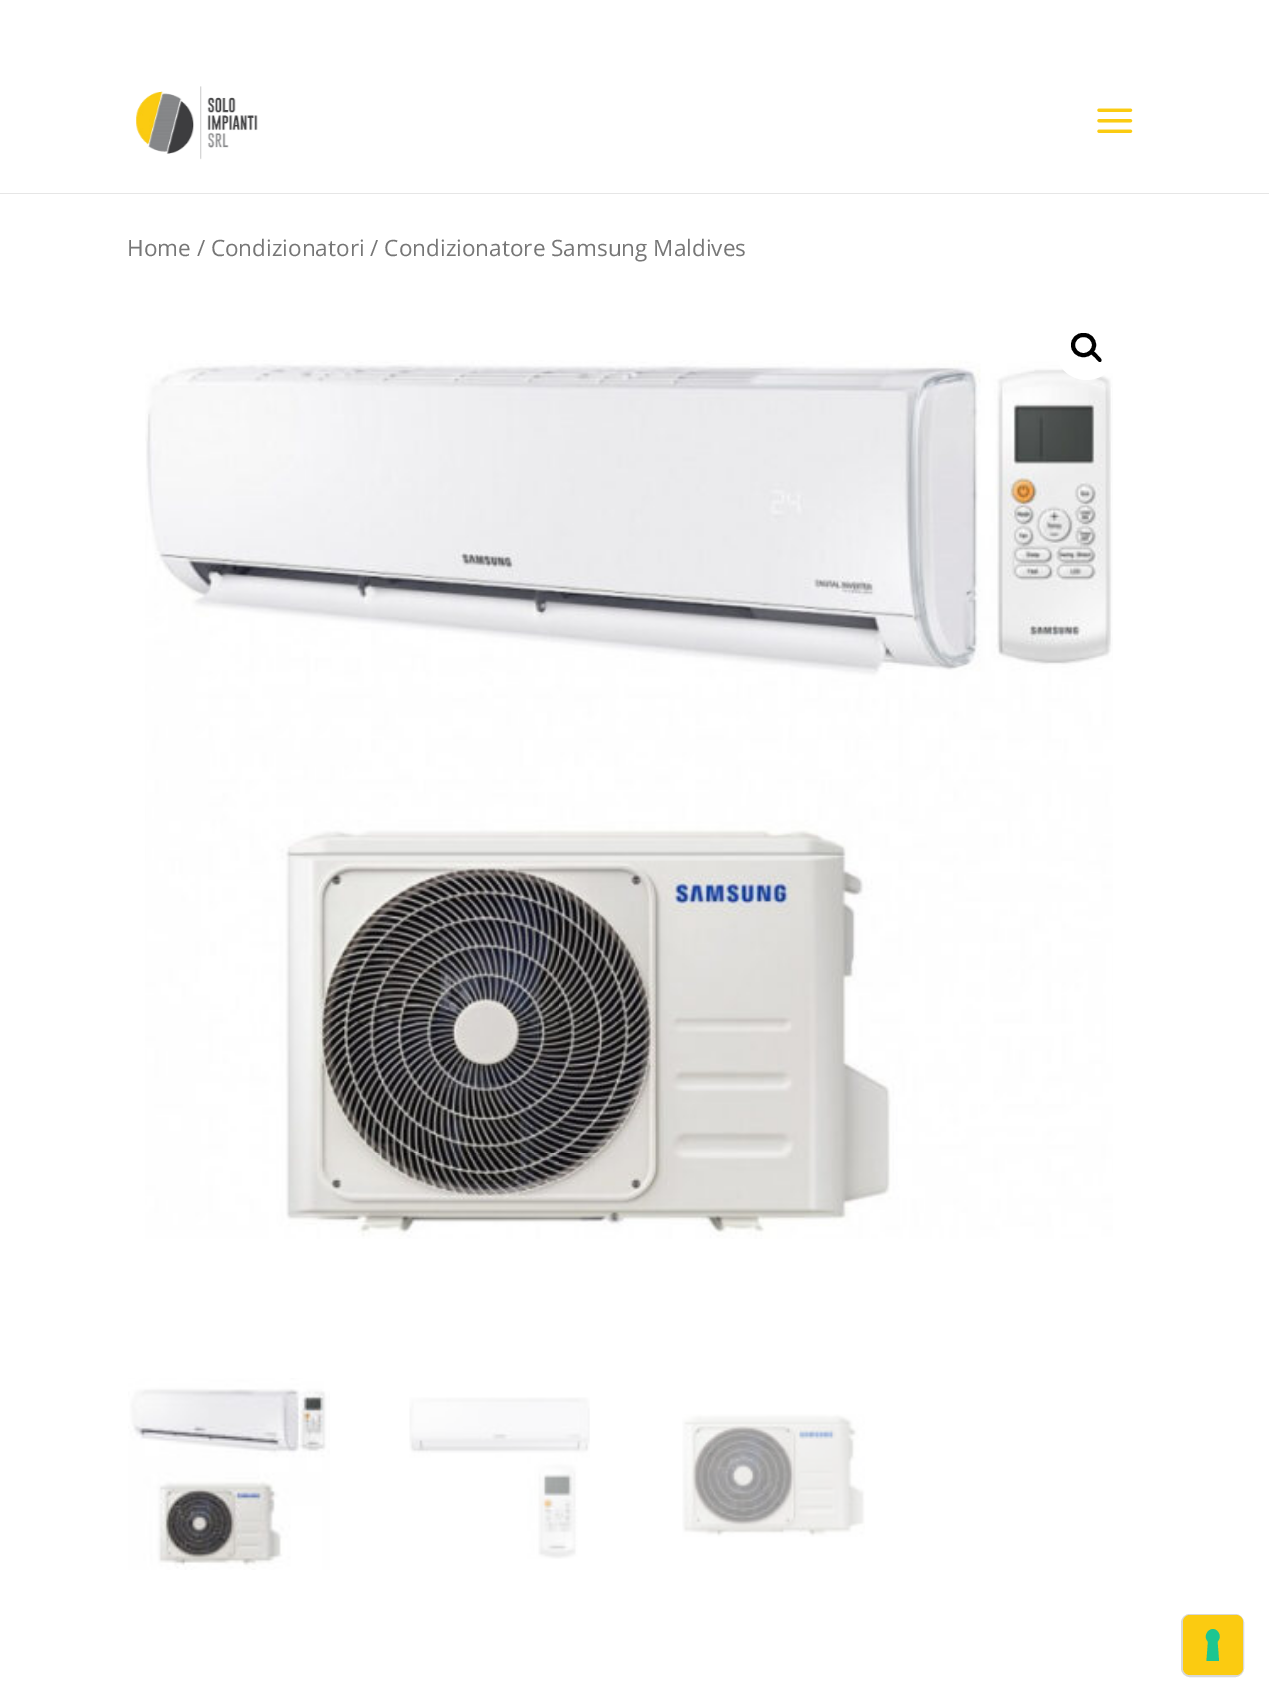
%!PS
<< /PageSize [1269 1702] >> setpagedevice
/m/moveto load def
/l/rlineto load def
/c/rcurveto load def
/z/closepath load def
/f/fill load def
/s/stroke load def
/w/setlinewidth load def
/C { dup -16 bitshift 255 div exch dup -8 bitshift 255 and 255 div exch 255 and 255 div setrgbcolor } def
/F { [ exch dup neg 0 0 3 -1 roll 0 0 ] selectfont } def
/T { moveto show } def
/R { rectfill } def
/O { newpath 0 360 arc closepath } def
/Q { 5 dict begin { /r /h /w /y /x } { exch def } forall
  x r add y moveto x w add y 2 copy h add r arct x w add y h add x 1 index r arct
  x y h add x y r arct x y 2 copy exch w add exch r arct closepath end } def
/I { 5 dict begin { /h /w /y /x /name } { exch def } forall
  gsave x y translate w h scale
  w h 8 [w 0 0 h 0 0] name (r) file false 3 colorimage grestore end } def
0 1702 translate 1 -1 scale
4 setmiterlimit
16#FFFFFF C
0 0 1269 1702 R
16#E6E6E6 C
0 192 m 0 2 l 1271 0 l 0 -140 l -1 0 l 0 138 l z f
16#FFFFFF C
0 192 1269 1 R
(1.rgb) 136 86 122 74 I
(2.rgb) 1097 108 36 25 I
/OpenSans-Regular 22.55 F
16#767676 C
(Home / Condizionatori / Condizionatore Samsung Maldives) 127 256 T
(3.rgb) 145 360 968 879 I
16#FFFFFF C
1086.5 348.5 31.5 O f
16#000000 C
4 w
1073 335 21 20 10 Q s
1091 351.5 m 2 -2 5.5 2.5 6.5 3.5 c 1 1.5 5.5 4.5 3.5 6.5 c -2 2 -5 -3 -6 -4 c -1 -1 -6 -4 -4 -6 c z f
(4.rgb) 128 1378 202 192 I
(5.rgb) 409 1397 181 162 I
(6.rgb) 682 1414 183 123 I
16#D9D9D9 C
2 w
1182 1615 61 61 8 Q s
16#FBCB11 C
1183 1615 60 60 7 Q f
16#1CC691 C
1213 1629 m 6 .5 9 8.5 4.5 12.5 c 1.5 19.5 l -12.5 0 l 1.5 -19.5 l -4.5 -4 -1.5 -12 5 -12.5 c z eofill
showpage
